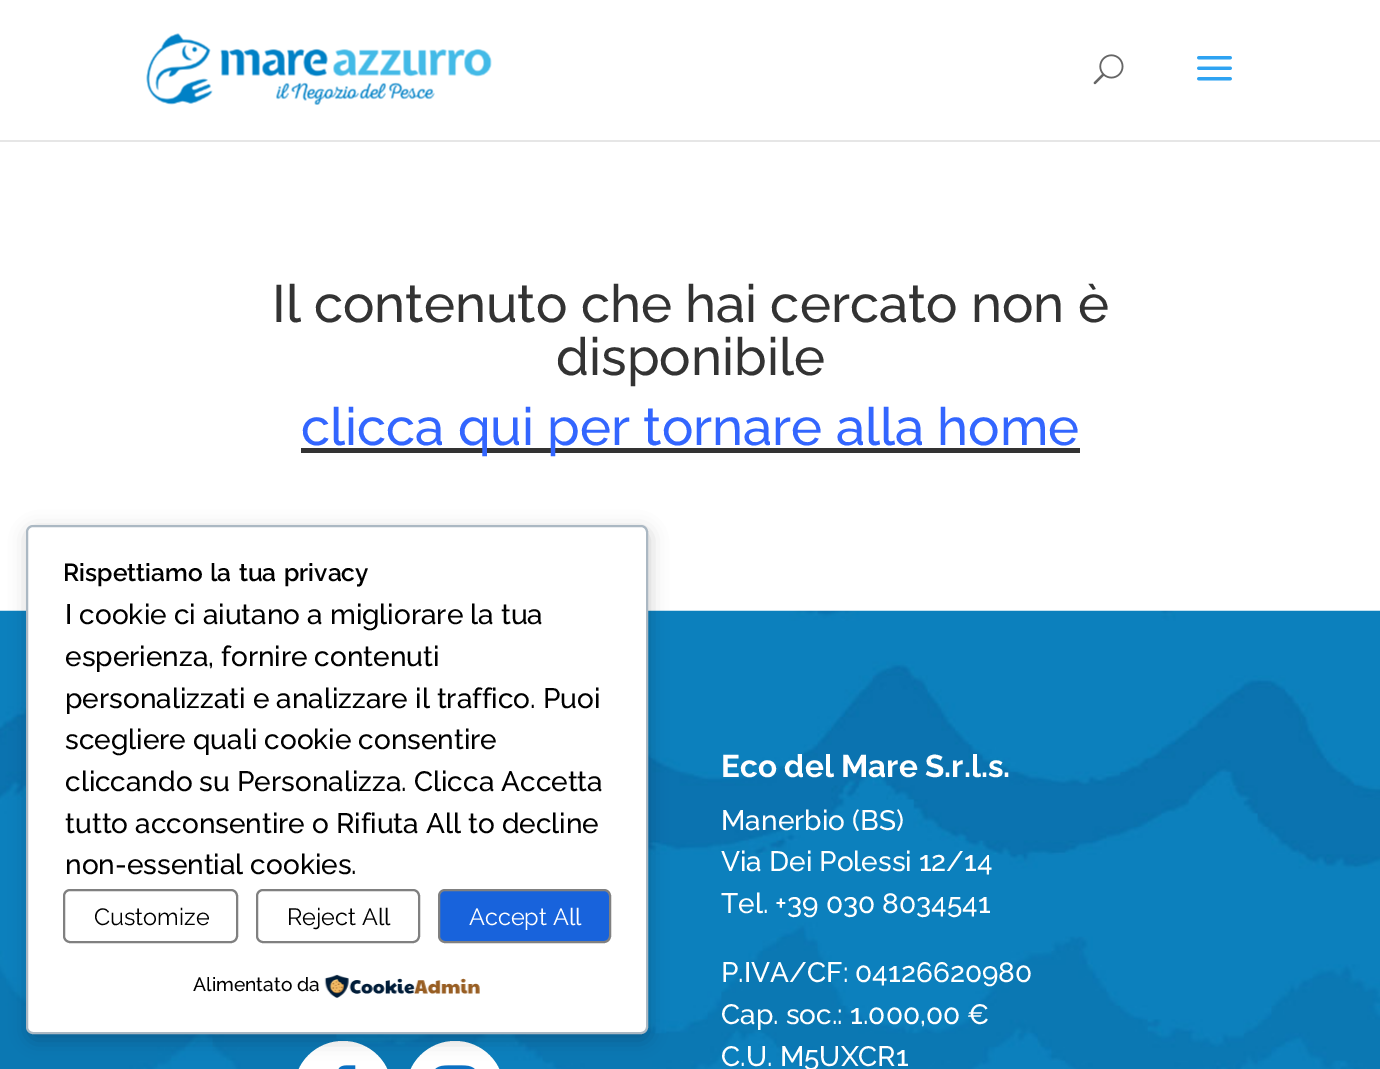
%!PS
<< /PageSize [1380 1069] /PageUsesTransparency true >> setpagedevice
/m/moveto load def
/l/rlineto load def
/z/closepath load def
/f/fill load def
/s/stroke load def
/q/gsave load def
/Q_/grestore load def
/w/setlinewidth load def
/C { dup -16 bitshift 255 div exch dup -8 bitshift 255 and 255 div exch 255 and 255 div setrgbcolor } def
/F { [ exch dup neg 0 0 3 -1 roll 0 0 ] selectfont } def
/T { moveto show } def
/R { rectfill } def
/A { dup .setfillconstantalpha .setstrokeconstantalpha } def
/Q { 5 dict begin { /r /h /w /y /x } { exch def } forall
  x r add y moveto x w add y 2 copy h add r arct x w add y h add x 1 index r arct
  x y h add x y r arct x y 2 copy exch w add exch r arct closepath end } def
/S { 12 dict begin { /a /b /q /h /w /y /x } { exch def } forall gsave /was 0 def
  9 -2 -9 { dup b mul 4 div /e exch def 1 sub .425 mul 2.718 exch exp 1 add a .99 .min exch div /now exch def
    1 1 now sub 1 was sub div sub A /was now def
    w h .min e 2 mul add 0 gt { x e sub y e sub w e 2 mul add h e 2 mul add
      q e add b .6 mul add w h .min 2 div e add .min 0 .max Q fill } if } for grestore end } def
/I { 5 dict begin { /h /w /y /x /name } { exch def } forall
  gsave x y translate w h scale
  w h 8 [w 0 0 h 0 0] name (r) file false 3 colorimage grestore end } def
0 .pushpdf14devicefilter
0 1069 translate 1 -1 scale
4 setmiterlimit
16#FFFFFF C
0 0 1380 1069 R
16#E6E6E6 C
0 140 m 0 2 l 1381 0 l 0 -140 l 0 138 l z f
(1.rgb) 146 33 346 72 I
(2.rgb) 1093 54 31 31 I
(3.rgb) 1197 56 35 25 I
/Raleway-Medium 52.5 F
16#333333 C
(Il contenuto che hai cercato non è) 272 322 T
(disponibile) 556 375 T
301 448 779 5 R
16#3366FF C
(clicca qui per tornare alla home) 301 445 T
(4.rgb) 0 610 1380 459 I
/Raleway-Bold 31.5 F
16#FFFFFF C
(Eco del Mare S.r.l.s.) 721 777 T
/Raleway-Medium 28 F
(Manerbio \(BS\)) 721 830 T
(Via Dei Polessi 12/14) 721 871 T
(Tel. +39 030 8034541) 721 913 T
(P.IVA/CF: 04126620980) 721 982 T
(Cap. soc.: 1.000,00 €) 721 1024 T
(C.U. M5UXCR1) 721 1066 T
294 1041 98 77 49 Q f
(5.rgb) 338 1065 18 4 I
406 1041 98 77 49 Q f
(6.rgb) 435 1065 40 4 I
16#000000 C
28 530 621 510 7 9 .2 S
16#FFFFFF C
27 526 620 507 6 Q q f Q_
16#ABB8C3 C
2 w
s
/Raleway-SemiBold 24.5 F
16#000000 C
63 581 m 1.5 0 32 (Rispettiamo la tua privacy) widthshow
/Raleway-Medium 28 F
(I cookie ci aiutano a migliorare la tua) 65 624 T
(esperienza, fornire contenuti) 65 666 T
(personalizzati e analizzare il traffico. Puoi) 65 708 T
(scegliere quali cookie consentire) 65 749 T
(cliccando su Personalizza. Clicca Accetta) 65 791 T
(tutto acconsentire o Rifiuta All to decline) 65 833 T
(non-essential cookies.) 65 874 T
16#808080 C
64 890 173 52 6 Q s
/Raleway-Regular 23.5 F
16#000000 C
(Customize) 94 925 T
16#808080 C
257 890 162 52 6 Q s
16#000000 C
(Reject All) 287 925 T
16#1863DC C
439 890 171 52 6 Q q f Q_
16#808080 C
s
16#FFFFFF C
(Accept All) 469 925 T
/Raleway-Medium 19.25 F
16#000000 C
(Alimentato da) 193 991 T
(7.rgb) 324 974 156 24 I
.poppdf14devicefilter showpage
